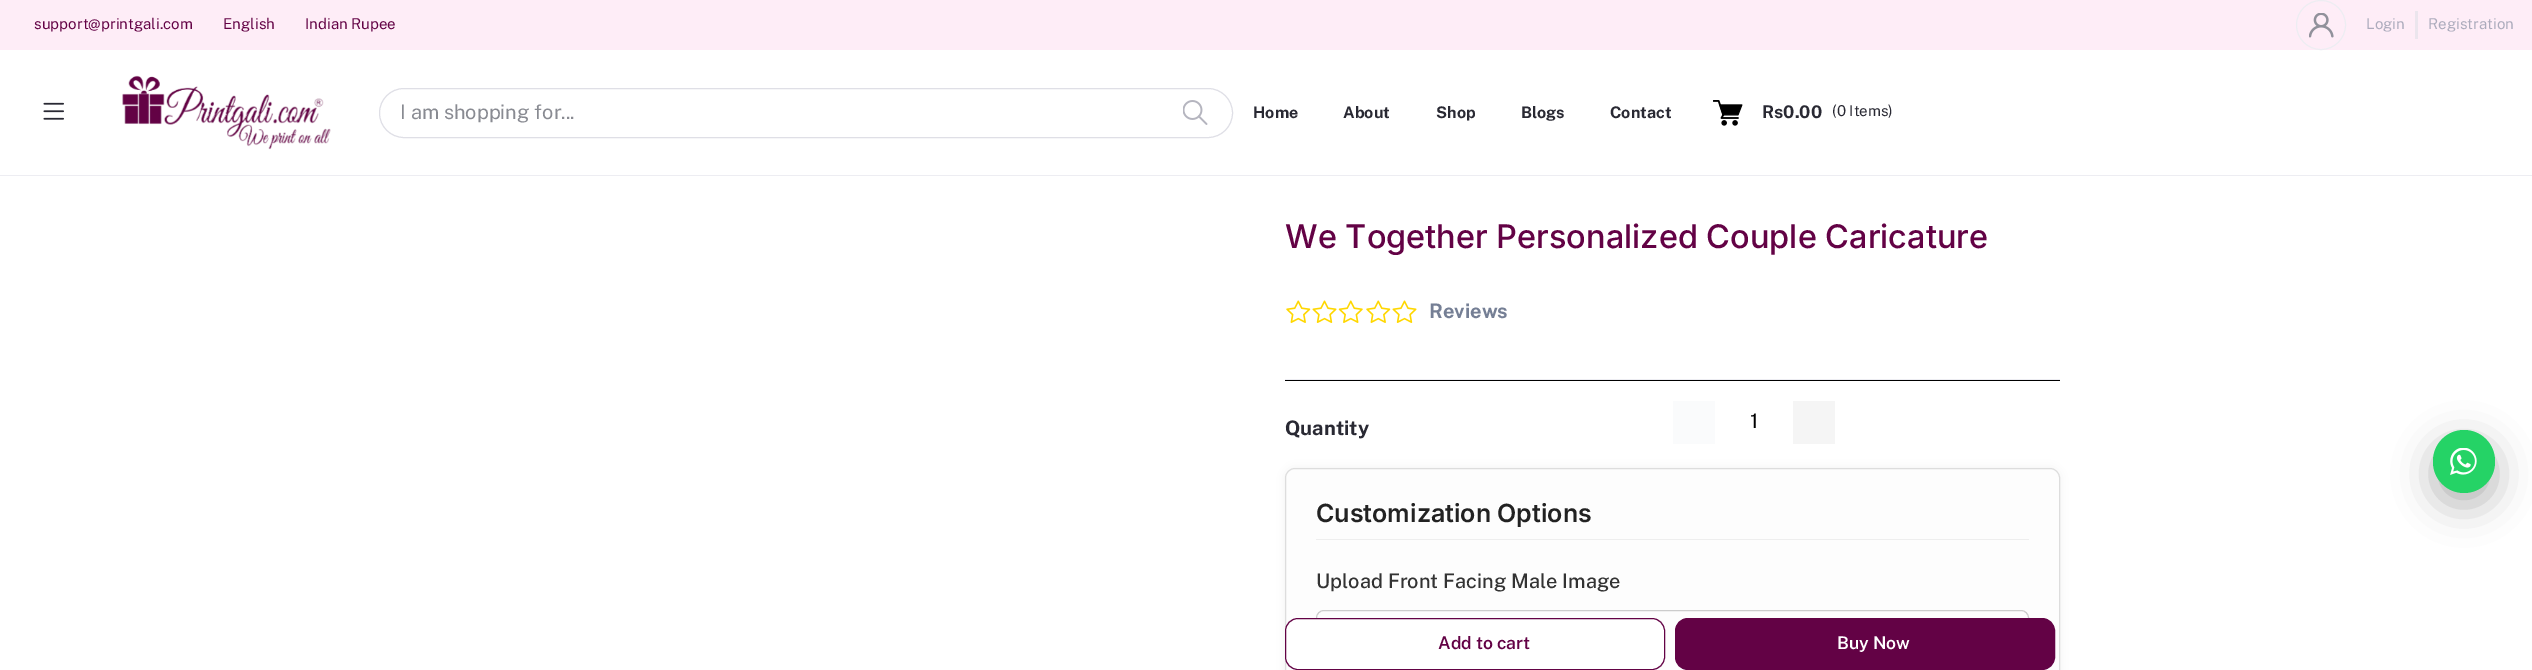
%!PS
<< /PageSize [2532 670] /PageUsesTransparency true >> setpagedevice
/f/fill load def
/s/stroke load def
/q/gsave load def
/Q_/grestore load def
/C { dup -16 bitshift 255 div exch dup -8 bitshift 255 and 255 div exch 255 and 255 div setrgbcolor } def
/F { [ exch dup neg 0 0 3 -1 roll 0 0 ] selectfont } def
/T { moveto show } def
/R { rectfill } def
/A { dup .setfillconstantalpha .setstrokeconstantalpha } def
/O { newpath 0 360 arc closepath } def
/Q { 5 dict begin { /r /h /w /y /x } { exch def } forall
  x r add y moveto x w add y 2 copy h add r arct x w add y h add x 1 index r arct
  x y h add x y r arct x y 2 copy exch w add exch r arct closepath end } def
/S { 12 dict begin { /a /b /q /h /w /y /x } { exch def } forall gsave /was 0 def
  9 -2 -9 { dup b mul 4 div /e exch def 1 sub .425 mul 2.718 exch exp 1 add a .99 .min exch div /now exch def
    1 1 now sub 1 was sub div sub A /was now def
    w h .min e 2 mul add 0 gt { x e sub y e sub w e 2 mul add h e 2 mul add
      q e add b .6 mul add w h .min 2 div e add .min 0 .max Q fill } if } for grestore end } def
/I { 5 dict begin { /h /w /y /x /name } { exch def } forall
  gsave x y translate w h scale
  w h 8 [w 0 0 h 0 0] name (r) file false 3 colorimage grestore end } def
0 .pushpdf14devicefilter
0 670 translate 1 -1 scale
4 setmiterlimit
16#FFFFFF C
0 0 2532 670 R
16#FEEDF7 C
0 0 2532 50 R
/PublicSans-Regular 15 F
16#630245 C
(support@printgali.com) 34 29 T
(English) 223 29 T
(Indian Rupee) 305 29 T
16#EDEDF2 C
2321 25 24.5 O s
(1.rgb) 2309 13 25 25 I
16#EBE5ED C
2415 11 3 28 R
16#ACABBC C
(Login) 2366 29 T
(Registration) 2428 29 T
16#EDEDF2 C
0 175 2532 1 R
(2.rgb) 43 102 21 18 I
(3.rgb) 122 75 209 75 I
16#DFDFE6 C
379.5 88.5 853 49 24.5 Q s
/PublicSans-Regular 20 F
16#898B92 C
(I am shopping for...) 400 119 T
(4.rgb) 1183 100 25 25 I
/PublicSans-Bold 16 F
16#292933 C
(Home) 1253 118 T
(About) 1343 118 T
(Shop) 1436 118 T
(Blogs) 1521 118 T
(Contact) 1610 118 T
(5.rgb) 1713 100 30 26 I
/PublicSans-Bold 17.5 F
(Rs0.00) 1762 118 T
/PublicSans-Regular 15 F
(\(0 Items\)) 1832 116 T
/Inter-Medium 32.5 F
16#630245 C
(We Together Personalized Couple Caricature) 1285 248 T
(6.rgb) 1286 300 25 23 I
(7.rgb) 1312 300 25 23 I
(8.rgb) 1338 300 25 23 I
(6.rgb) 1366 300 25 23 I
(7.rgb) 1392 300 25 23 I
/PublicSans-Bold 20 F
16#757F95 C
(Reviews) 1429 318 T
16#EDEDF2 C
1285 379 775 1 R
16#000000 C
1285 380 775 1 R
16#292933 C
(Quantity) 1285 435 T
16#FAFBFC C
1673 401 42 43 R
/PublicSans-Regular 20 F
16#000000 C
(1) 1750 428 T
16#F5F5F5 C
1793 401 42 43 R
16#000000 C
1285 468 775 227 10 5 .05 S
16#FDFDFD C
1285.5 468.5 774 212 9.5 Q q f Q_
16#DDDDDD C
s
16#EEEEEE C
1316 539 713 1 R
/Inter-SemiBold 25 F
16#222222 C
(Customization Options) 1316 522 T
/PublicSans-Medium 20 F
16#333333 C
(Upload Front Facing Male Image) 1316 588 T
16#CCCCCC C
1316.5 610.5 712 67 7.5 Q s
16#FFFFFF C
1285.5 618.5 379 51 12.5 Q q f Q_
16#630245 C
s
/PublicSans-SemiBold 17.5 F
(Add to cart) 1438 649 T
1675.5 618.5 379 51 12.5 Q q f Q_
s
16#FFFFFF C
(Buy Now) 1837 649 T
16#696969 C
2433 443 62 62 31 19 .5 S
16#25D366 C
2433 430 62 63 31 Q f
(9.rgb) 2450 448 27 27 I
.poppdf14devicefilter showpage
